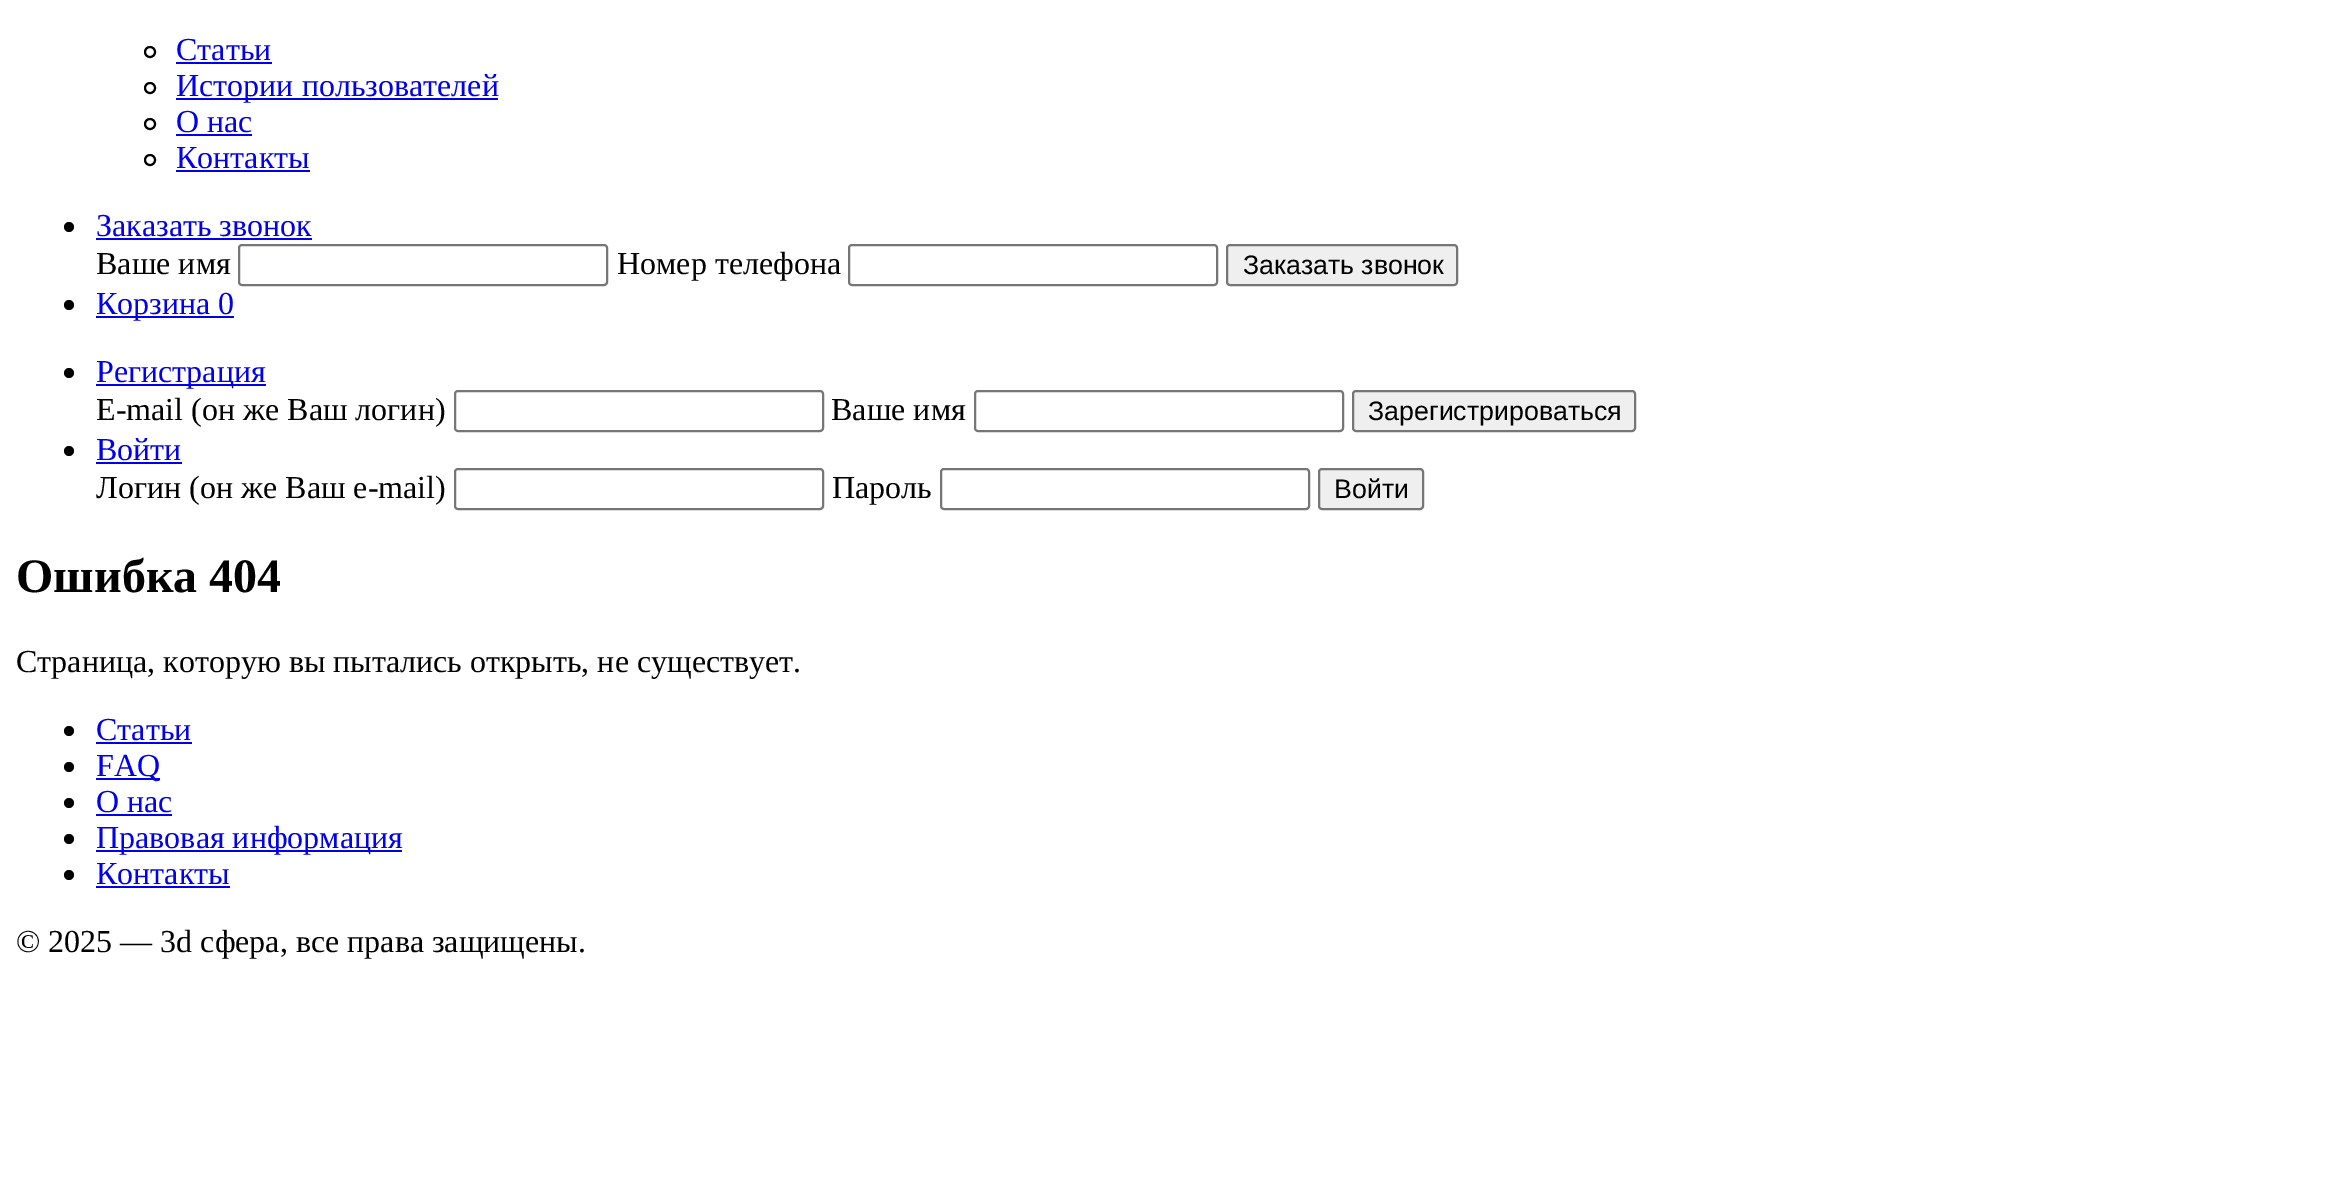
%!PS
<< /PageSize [2335 1204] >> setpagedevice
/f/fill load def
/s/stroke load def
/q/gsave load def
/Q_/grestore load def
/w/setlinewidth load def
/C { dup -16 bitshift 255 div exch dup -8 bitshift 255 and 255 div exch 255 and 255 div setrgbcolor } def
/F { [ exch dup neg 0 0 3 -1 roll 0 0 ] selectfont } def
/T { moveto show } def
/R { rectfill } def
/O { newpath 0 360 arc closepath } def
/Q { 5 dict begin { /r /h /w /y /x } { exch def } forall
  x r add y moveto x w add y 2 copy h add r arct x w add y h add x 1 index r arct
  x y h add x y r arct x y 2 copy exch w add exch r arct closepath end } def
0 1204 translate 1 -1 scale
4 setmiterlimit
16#FFFFFF C
0 0 2335 1204 R
16#000000 C
2 w
150 52 5 O s
/LiberationSerif-Regular 32 F
16#0000EE C
(Статьи) 176 60 T
176 62 96 2 R
16#000000 C
150 88 5 O s
16#0000EE C
176 98 322 2 R
(Истории пользователей) 176 96 T
16#000000 C
150 124 5 O s
16#0000EE C
(О нас) 176 132 T
176 134 76 2 R
16#000000 C
150 160 5 O s
16#0000EE C
(Контакты) 176 168 T
176 170 134 2 R
16#000000 C
69 227 5 O f
16#0000EE C
(Заказать звонок) 96 236 T
96 238 216 2 R
16#000000 C
(Ваше имя) 96 274 T
16#767676 C
239 245 368 40 3 Q s
16#000000 C
(Номер телефона) 617 274 T
16#767676 C
849 245 368 40 3 Q s
16#EFEFEF C
1227 245 230 40 3 Q q f Q_
16#767676 C
s
/LiberationSans-Regular 26.75 F
16#000000 C
(Заказать звонок) 1243 274 T
69 305 5 O f
16#0000EE C
96 316 138 2 R
/LiberationSerif-Regular 32 F
(Корзина 0) 96 314 T
16#000000 C
69 373 5 O f
16#0000EE C
96 384 170 2 R
(Регистрация) 96 382 T
16#000000 C
(E-mail \(он же Ваш логин\)) 96 420 T
16#767676 C
455 391 368 40 3 Q s
16#000000 C
(Ваше имя) 831 420 T
16#767676 C
975 391 368 40 3 Q s
16#EFEFEF C
1353 391 282 40 3 Q q f Q_
16#767676 C
s
/LiberationSans-Regular 26.75 F
16#000000 C
(Зарегистрироваться) 1368 420 T
69 451 5 O f
/LiberationSerif-Regular 32 F
16#0000EE C
(Войти) 96 460 T
96 462 86 2 R
16#000000 C
(Логин \(он же Ваш e-mail\)) 96 498 T
16#767676 C
455 469 368 40 3 Q s
16#000000 C
(Пароль) 832 498 T
16#767676 C
941 469 368 40 3 Q s
16#EFEFEF C
1319 469 104 40 3 Q q f Q_
16#767676 C
s
/LiberationSans-Regular 26.75 F
16#000000 C
(Войти) 1334 498 T
/LiberationSerif-Bold 48 F
(Ошибка 404) 16 592 T
/LiberationSerif-Regular 32 F
(Страница, которую вы пытались открыть, не существует.) 16 672 T
69 731 5 O f
16#0000EE C
(Статьи) 96 740 T
96 742 96 2 R
16#000000 C
69 767 5 O f
16#0000EE C
96 778 64 2 R
(FAQ) 96 776 T
16#000000 C
69 803 5 O f
16#0000EE C
(О нас) 96 812 T
96 814 76 2 R
16#000000 C
69 839 5 O f
16#0000EE C
96 850 306 2 R
(Правовая информация) 96 848 T
16#000000 C
69 875 5 O f
16#0000EE C
(Контакты) 96 884 T
96 886 134 2 R
16#000000 C
(© 2025 — 3d сфера, все права защищены.) 16 952 T
showpage
